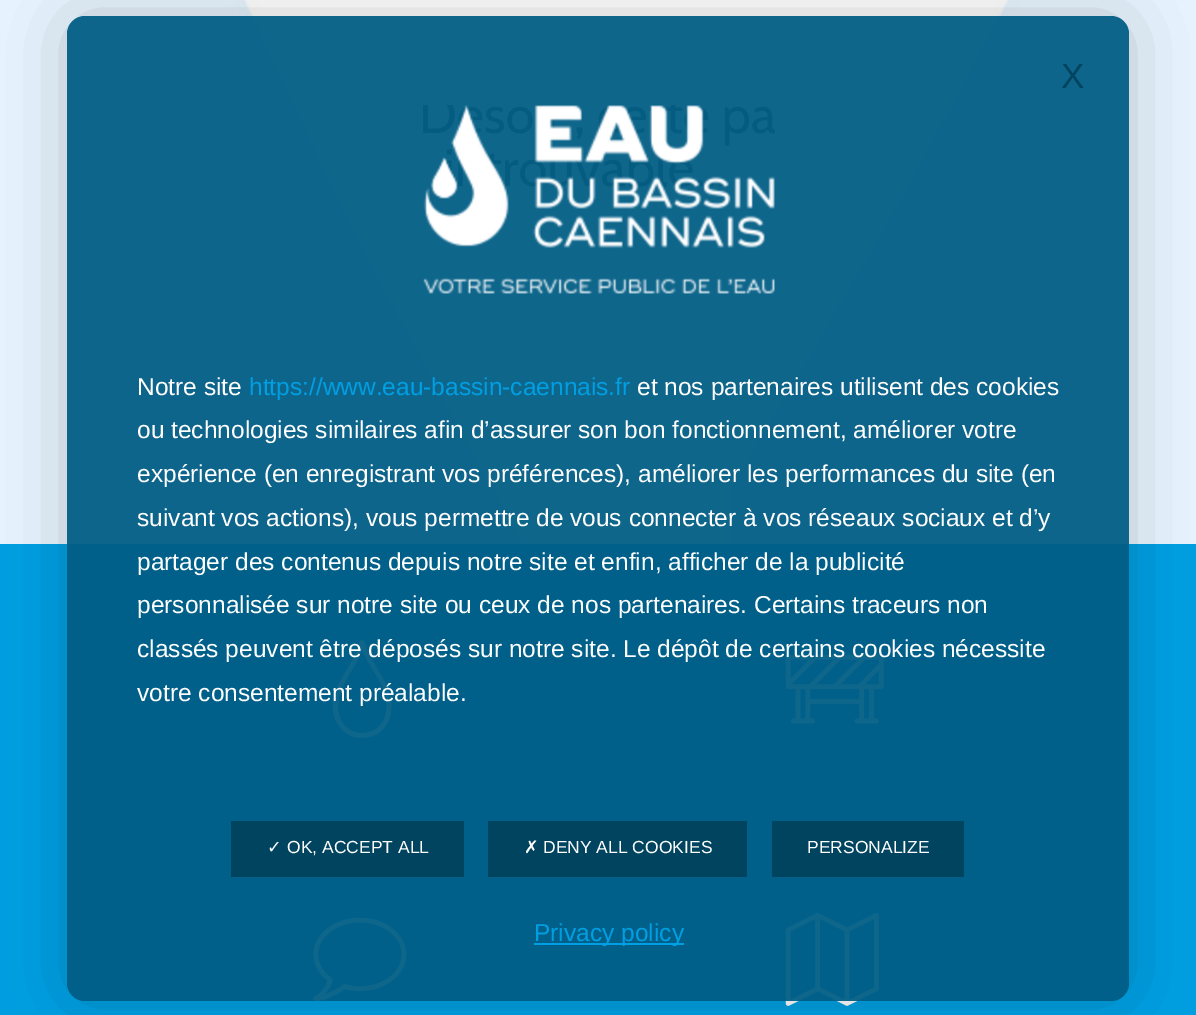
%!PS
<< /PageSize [1196 1015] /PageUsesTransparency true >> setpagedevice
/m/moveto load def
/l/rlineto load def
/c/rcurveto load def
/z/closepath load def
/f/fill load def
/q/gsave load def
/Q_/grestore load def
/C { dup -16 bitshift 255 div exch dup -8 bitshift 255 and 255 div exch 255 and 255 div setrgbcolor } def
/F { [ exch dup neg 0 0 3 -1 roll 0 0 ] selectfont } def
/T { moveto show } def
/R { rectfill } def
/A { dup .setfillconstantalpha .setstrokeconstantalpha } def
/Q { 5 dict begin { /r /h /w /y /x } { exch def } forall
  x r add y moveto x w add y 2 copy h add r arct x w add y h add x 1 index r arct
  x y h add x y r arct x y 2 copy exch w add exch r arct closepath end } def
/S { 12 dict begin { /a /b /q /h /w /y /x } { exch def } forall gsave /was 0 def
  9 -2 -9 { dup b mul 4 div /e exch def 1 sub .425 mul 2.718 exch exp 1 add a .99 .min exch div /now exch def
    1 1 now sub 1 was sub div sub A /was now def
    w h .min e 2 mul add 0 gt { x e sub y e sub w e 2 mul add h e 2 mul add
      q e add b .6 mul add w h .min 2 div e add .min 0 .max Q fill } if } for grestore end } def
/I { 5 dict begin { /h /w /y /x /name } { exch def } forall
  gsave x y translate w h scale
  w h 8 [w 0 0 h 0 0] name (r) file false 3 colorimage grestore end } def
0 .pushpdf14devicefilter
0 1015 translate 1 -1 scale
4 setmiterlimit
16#FFFFFF C
0 0 1196 1015 R
(1.rgb) 0 0 1196 544 I
16#009FE3 C
0 544 1196 471 R
16#FFFFFF C
362 738 m -9 0 -17 -4 -22 -11 c -5 -6 -7 -12 -7 -19 c -1 -19 12 -33 20 -49 c 5 -11 l 2 -7 l 2 -1 l 2 1 l 2 6 l 5 11 l 9 17 23 33 20 53 c 0 6 -3 12 -7 17 c -5 6 -13 10 -22 10 c z 362 650 m -6 18 -23 34 -24 54 c -2 41 55 38 48 -5 c -3 -18 -17 -32 -24 -49 c z f
(3.rgb) 785 654 99 70 I
(4.rgb) 313 917 94 84 I
(5.rgb) 785 912 94 94 I
q
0 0 m 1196 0 l 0 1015 l -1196 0 l z 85 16 m 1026 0 l 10 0 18 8 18 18 c 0 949 l 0 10 -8 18 -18 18 c -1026 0 l -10 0 -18 -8 -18 -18 c 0 -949 l 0 -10 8 -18 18 -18 c z eoclip newpath
16#000000 C
67 16 1062 985 18 35 .2 S
Q_
0.94 A
16#005C84 C
67 16 1062 985 18 Q f
/LiberationSans-Regular 35 F
1 A
16#014460 C
(X) 1061 88 T
(2.rgb) 423 105 352 189 I
/LiberationSans-Regular 24.5 F
16#FFFFFF C
(Notre site) 137 395 T
16#009FE3 C
(https://www.eau-bassin-caennais.fr) 249 395 T
16#FFFFFF C
(et nos partenaires utilisent des cookies) 637 395 T
(ou technologies similaires afin d’assurer son bon fonctionnement, améliorer votre) 137 438 T
(expérience \(en enregistrant vos préférences\), améliorer les performances du site \(en) 137 482 T
(suivant vos actions\), vous permettre de vous connecter à vos réseaux sociaux et d’y) 137 526 T
(partager des contenus depuis notre site et enfin, afficher de la publicité) 137 570 T
(personnalisée sur notre site ou ceux de nos partenaires. Certains traceurs non) 137 613 T
(classés peuvent être déposés sur notre site. Le dépôt de certains cookies nécessite) 137 657 T
(votre consentement préalable.) 137 701 T
16#014460 C
231 821 233 56 R
/DejaVuSans-Regular 17.5 F
16#FFFFFF C
(✓) 267 853 T
/LiberationSans-Regular 17.5 F
(OK, ACCEPT ALL) 287 853 T
16#014460 C
488 821 259 56 R
/DejaVuSans-Regular 17.5 F
16#FFFFFF C
(✗) 524 853 T
/LiberationSans-Regular 17.5 F
(DENY ALL COOKIES) 543 853 T
16#014460 C
772 821 192 56 R
16#FFFFFF C
(PERSONALIZE) 807 853 T
16#009FE3 C
534 943 150 2 R
/LiberationSans-Regular 24.5 F
(Privacy policy) 534 941 T
.poppdf14devicefilter showpage
